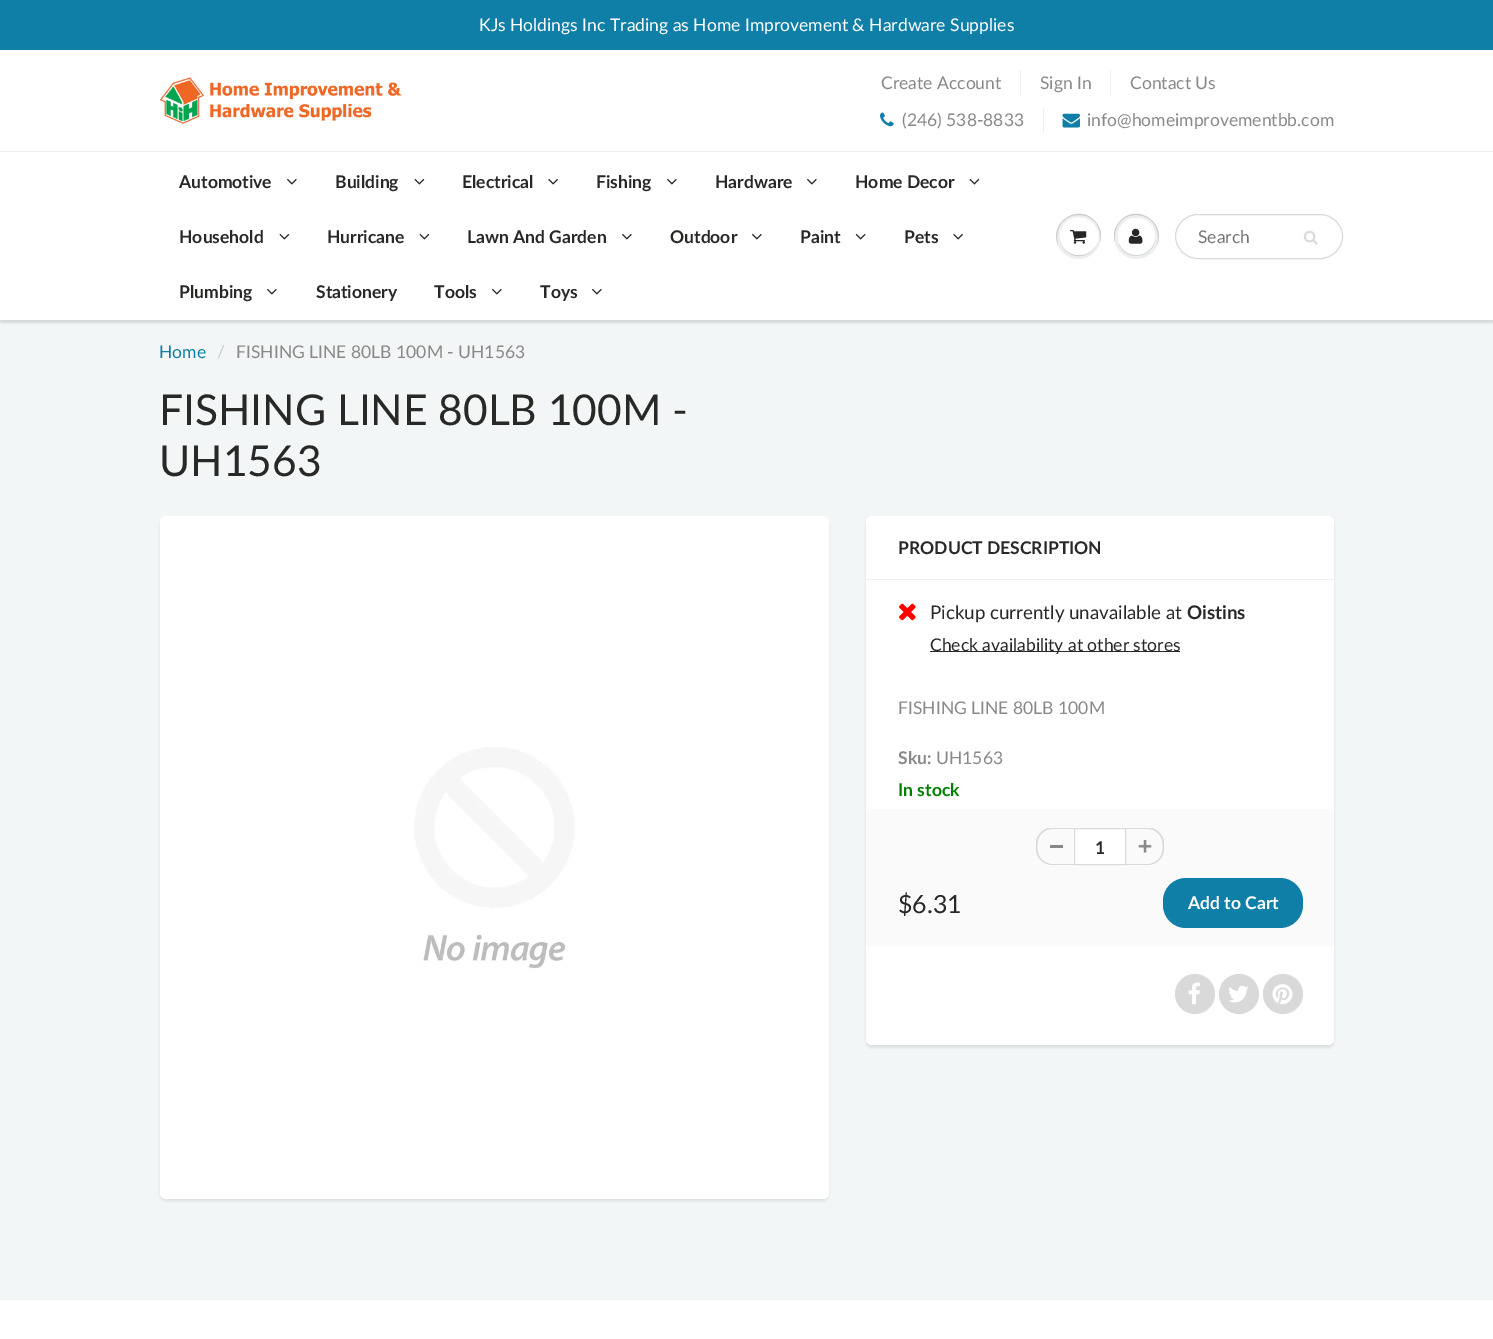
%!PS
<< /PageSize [1493 1339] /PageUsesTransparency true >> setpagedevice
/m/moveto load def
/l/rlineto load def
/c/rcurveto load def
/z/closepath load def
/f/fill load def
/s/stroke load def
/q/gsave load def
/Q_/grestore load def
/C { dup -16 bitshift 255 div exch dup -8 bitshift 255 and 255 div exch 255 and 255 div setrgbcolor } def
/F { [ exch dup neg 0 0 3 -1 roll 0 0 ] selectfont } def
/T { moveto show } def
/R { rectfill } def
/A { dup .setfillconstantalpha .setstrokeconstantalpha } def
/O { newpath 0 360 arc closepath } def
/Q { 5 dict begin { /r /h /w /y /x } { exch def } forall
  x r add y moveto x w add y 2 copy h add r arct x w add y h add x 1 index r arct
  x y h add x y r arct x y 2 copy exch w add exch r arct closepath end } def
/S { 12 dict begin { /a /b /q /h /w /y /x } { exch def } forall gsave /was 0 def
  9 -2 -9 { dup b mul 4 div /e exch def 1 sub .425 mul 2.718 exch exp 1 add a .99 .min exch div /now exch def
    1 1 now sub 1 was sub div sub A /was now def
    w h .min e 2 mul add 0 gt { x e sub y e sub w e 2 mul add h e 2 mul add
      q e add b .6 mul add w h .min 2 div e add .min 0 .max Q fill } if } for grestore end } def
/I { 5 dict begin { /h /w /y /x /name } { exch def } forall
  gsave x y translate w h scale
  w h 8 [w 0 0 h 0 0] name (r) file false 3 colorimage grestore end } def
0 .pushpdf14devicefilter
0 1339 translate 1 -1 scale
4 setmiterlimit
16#FFFFFF C
0 0 1493 1339 R
16#107FA8 C
0 0 1493 50 R
/Lato-Regular 17.5 F
16#FFFFFF C
(KJs Holdings Inc Trading as Home Improvement & Hardware Supplies) 479 31 T
(1.rgb) 160 77 242 47 I
16#898989 C
(Create Account) 881 89 T
16#ECEFEF C
1020 70 1 25 R
16#898989 C
(Sign In) 1040 89 T
16#ECEFEF C
1110 70 1 25 R
16#898989 C
(Contact Us) 1130 89 T
(2.rgb) 880 112 14 15 I
(\(246\) 538-8833) 902 126 T
16#ECEFEF C
1043 108 1 25 R
(3.rgb) 1062 113 18 15 I
16#898989 C
(info@homeimprovementbb.com) 1087 126 T
16#F3F6F6 C
0 320 1493 979 R
q
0 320 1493 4 rectclip
16#0B191C C
0 154 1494 169 0 1 .12 S
Q_
16#ECEFEF C
0 151 1493 1 R
/Lato-Bold 17.5 F
16#282827 C
(Automotive) 179 188 T
(4.rgb) 287 178 10 7 I
(Building) 335 188 T
(5.rgb) 414 178 11 7 I
(Electrical) 462 188 T
(6.rgb) 548 178 10 7 I
(Fishing) 596 188 T
(4.rgb) 667 178 10 7 I
(Hardware) 715 188 T
(4.rgb) 807 178 10 7 I
(Home Decor) 855 188 T
(5.rgb) 969 178 11 7 I
(Household) 179 243 T
(5.rgb) 279 233 11 7 I
(Hurricane) 327 243 T
(5.rgb) 419 233 11 7 I
(Lawn And Garden) 467 243 T
(4.rgb) 622 233 10 7 I
(Outdoor) 670 243 T
(4.rgb) 752 233 10 7 I
(Paint) 800 243 T
(7.rgb) 855 233 11 7 I
(Pets) 904 243 T
(6.rgb) 953 233 10 7 I
(Plumbing) 179 298 T
(4.rgb) 267 288 10 7 I
(Stationery) 316 298 T
(Tools) 434 298 T
(4.rgb) 492 288 10 7 I
(Toys) 540 298 T
(4.rgb) 592 288 10 7 I
16#EDEFEF C
1078.5 236.5 22.5 O f
16#C9CBCB C
1079 215 m 16 0 23 14 21 27 c 2 -6 1 -13 -3 -18 c -15 -23 -49 -3 -39 21 c -4 -13 3 -30 21 -30 c z f
1060 237 m 0 5 2 10 5.5 13.5 c 14.5 14.5 39 -1.5 31 -20.5 c 6 18.5 -16.5 33.5 -31 19.5 c -3.5 -3 -5.5 -8 -5.5 -12.5 c z f
16#FFFFFF C
1060 218 38 37 18.5 Q f
1079 219 m 16 0 22 17 16 28 c 14 -20 -18 -42 -32 -21 c -3 4 -4 10 -2 15 c -2 -10 4 -22 18 -22 c z f
(8.rgb) 1070 230 17 14 I
16#EDEFEF C
1136.5 236.5 22.5 O f
16#C9CBCB C
1136 215 m 18 0 25 17 21 30 c 10 -24 -24 -44 -39 -21 c -4 5 -5 12 -3 18 c -2 -13 5 -27 21 -27 c z f
1119 244 m 7.5 19 36.5 13.5 36 -7 c -.5 19.5 -27.5 24.5 -36 7 c z f
16#FFFFFF C
1136.5 236.5 18.5 O f
1136 219 m 14 0 20 11.5 18.5 22 c 5 -19.5 -21.5 -32 -33.5 -15 c -2 3.5 -3 7 -3 11 c 0 -9 6 -18 18 -18 c z f
(9.rgb) 1128 228 15 16 I
16#D7DBDB C
1175.5 214.5 167 44 22 Q s
/Lato-Regular 17.5 F
16#757575 C
(Search) 1198 243 T
(10.rgb) 1303 230 15 15 I
16#107FA8 C
(Home) 159 358 T
16#CCCCCC C
(/) 217 358 T
16#898989 C
(FISHING LINE 80LB 100M - UH1563) 236 358 T
/Lato-Regular 42.5 F
16#282827 C
(FISHING LINE 80LB 100M -) 159 425 T
(UH1563) 159 476 T
16#0B191C C
160 519 669 682 6 1 .1 S
16#FFFFFF C
160 516 669 683 6 Q f
(11.rgb) 414 747 161 222 I
16#0B191C C
866 519 468 529 6 1 .1 S
16#FFFFFF C
866 516 468 529 6 Q f
16#EFEFEF C
866 579 468 1 R
/Lato-Bold 17.5 F
16#282827 C
(PRODUCT DESCRIPTION) 898 554 T
(12.rgb) 899 603 17 18 I
/Lato-Regular 18.75 F
(Pickup currently unavailable at) 930 619 T
/Lato-Bold 18.75 F
(Oistins) 1187 619 T
16#282727 C
930 651 250 1 R
/Lato-Regular 17.5 F
16#282827 C
(Check availability at other stores) 930 651 T
16#898989 C
(FISHING LINE 80LB 100M) 898 714 T
/Lato-Bold 17.5 F
(Sku:) 898 764 T
/Lato-Regular 17.5 F
(UH1563) 936 764 T
/Lato-Bold 17.5 F
16#008000 C
(In stock) 898 796 T
16#FAFAFA C
866 809 468 137 R
16#898989 C
1050 845 13 3 R
q
1036 828 128 37 rectclip
16#D7DBDB C
1052.5 827.5 m 21.5 0 l 0 37.5 l -21.5 0 l -9 0 -16.5 -7.5 -16.5 -16 c 0 -5 l 0 -9 7.5 -16.5 16.5 -16.5 c z 1052.5 829 m 21.5 0 l 0 35 l -21.5 0 l -8.5 0 -15 -7 -15 -15 c 0 -5 l 0 -8.5 6.5 -15 15 -15 c z eofill
Q_
16#FFFFFF C
1074.5 828.5 m 51 0 l 0 36 l -51 0 l z q f Q_
16#D7DBDB C
s
16#282827 C
(1) 1095 854 T
(13.rgb) 1138 840 14 13 I
q
1036 828 128 37 rectclip
16#D7DBDB C
1126 827.5 m 21.5 0 l 9 0 16.5 7.5 16.5 16.5 c 0 5 l 0 8.5 -7.5 16 -16.5 16 c -21.5 0 l z 1126 829 m 21.5 0 l 8.5 0 15 6.5 15 15 c 0 5 l 0 8 -6.5 15 -15 15 c -21.5 0 l z eofill
Q_
/Lato-Regular 25 F
($6.31) 898 913 T
16#107FA8 C
1163 878 140 50 23 Q f
/Lato-Bold 17.5 F
16#FFFFFF C
(Add to Cart) 1188 909 T
16#D9D9D9 C
1195 994 20 O f
(14.rgb) 1188 982 12 23 I
1239 994 20 O f
(15.rgb) 1228 985 21 18 I
1283 994 20 O f
(16.rgb) 1272 984 21 21 I
16#ECEFEF C
0 1299 1493 1 R
.poppdf14devicefilter showpage
